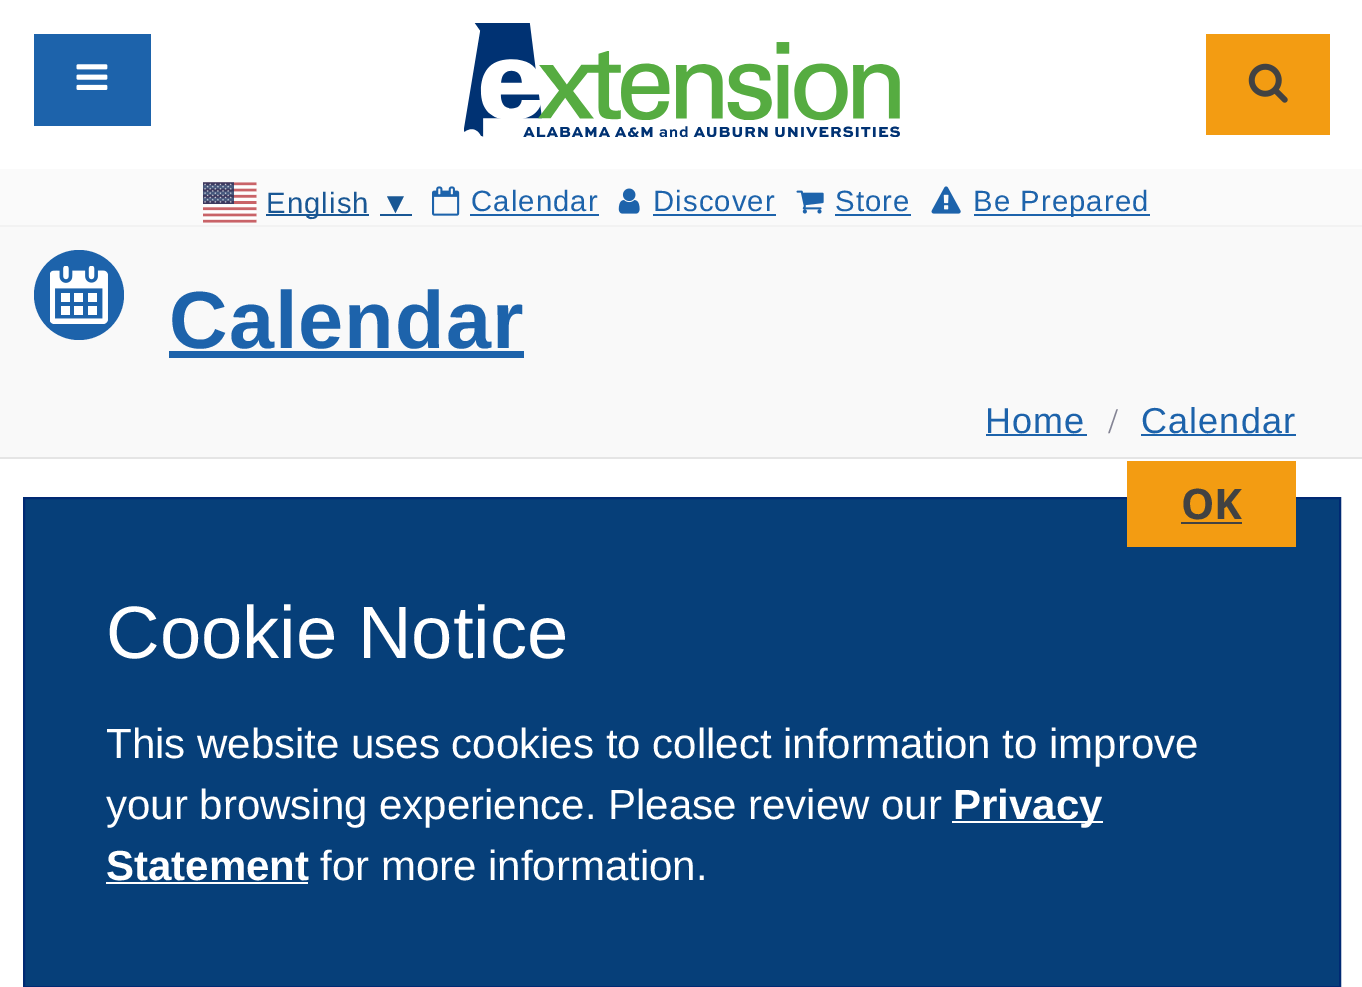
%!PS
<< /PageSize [1362 987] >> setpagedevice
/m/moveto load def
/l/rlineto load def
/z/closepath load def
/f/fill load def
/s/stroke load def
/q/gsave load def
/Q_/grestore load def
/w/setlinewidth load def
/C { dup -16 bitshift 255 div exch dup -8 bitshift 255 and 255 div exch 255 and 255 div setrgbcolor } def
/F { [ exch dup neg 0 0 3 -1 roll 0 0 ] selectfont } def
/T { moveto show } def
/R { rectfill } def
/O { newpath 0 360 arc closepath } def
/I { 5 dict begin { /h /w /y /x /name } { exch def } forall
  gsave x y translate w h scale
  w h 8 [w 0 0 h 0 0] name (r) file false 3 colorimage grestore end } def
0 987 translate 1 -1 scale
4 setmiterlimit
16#FFFFFF C
0 0 1362 987 R
16#1D63AB C
34 34 117 92 R
(1.rgb) 76 64 32 26 I
(2.rgb) 464 23 436 114 I
16#F39C12 C
1206 34 124 101 R
(3.rgb) 1248 63 40 40 I
16#FAFAFA C
0 169 1362 56 R
16#F2F2F2 C
0 225 1362 2 R
(4.rgb) 203 182 54 41 I
16#195794 C
266 214 103 2 R
/LiberationSans-Regular 29.25 F
266 213 m 1.1 0 (English) ashow
/LiberationSans-Bold 29.25 F
381 213 m 1.1 0 (▼) ashow
380 214 32 2 R
(5.rgb) 432 186 28 30 I
/LiberationSans-Regular 29.25 F
16#1D63AB C
471 211 m 1.1 0 (Calendar) ashow
470 214 129 2 R
(6.rgb) 618 188 22 26 I
653 211 m 1.1 0 (Discover) ashow
653 214 123 2 R
(7.rgb) 796 190 28 24 I
835 211 m 1.1 0 (Store) ashow
835 214 76 2 R
(8.rgb) 931 186 30 28 I
974 214 176 2 R
973 211 m 1.1 0 (Be Prepared) ashow
16#F9F9F9 C
0 227 1362 230 R
16#E5E5E5 C
0 457 1362 2 R
16#1D63AB C
79 295 45 O f
(9.rgb) 50 266 58 58 I
/LiberationSans-Bold 81 F
169 348 m 1.1 0 (Calendar) ashow
169 351 355 7 R
/LiberationSans-Regular 36 F
985 433 m 1.1 0 (Home) ashow
986 434 101 2 R
/LiberationSerif-Regular 36 F
16#848494 C
1108 433 m 1.1 0 (/) ashow
/LiberationSans-Regular 36 F
16#1D63AB C
1141 433 m 1.1 0 (Calendar) ashow
1141 434 155 2 R
16#063F79 C
24 498 m 1316 0 l 0 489 l -1316 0 l z q f Q_
16#002973 C
2 w
s
16#F39C12 C
1127 461 169 86 R
16#424242 C
1181 522 61 2 R
/OpenSans-Bold 42 F
(OK) 1181 519 T
/LiberationSans-Regular 74.25 F
16#FFFFFF C
(Cookie Notice) 106 658 T
/LiberationSans-Regular 42 F
(This website uses cookies to collect information to improve) 106 758 T
(your browsing experience. Please review our) 106 819 T
952 821 151 2 R
/LiberationSans-Bold 42 F
(Privacy) 953 819 T
(Statement) 106 880 T
106 882 202 2 R
/LiberationSans-Regular 42 F
(for more information.) 320 880 T
showpage
